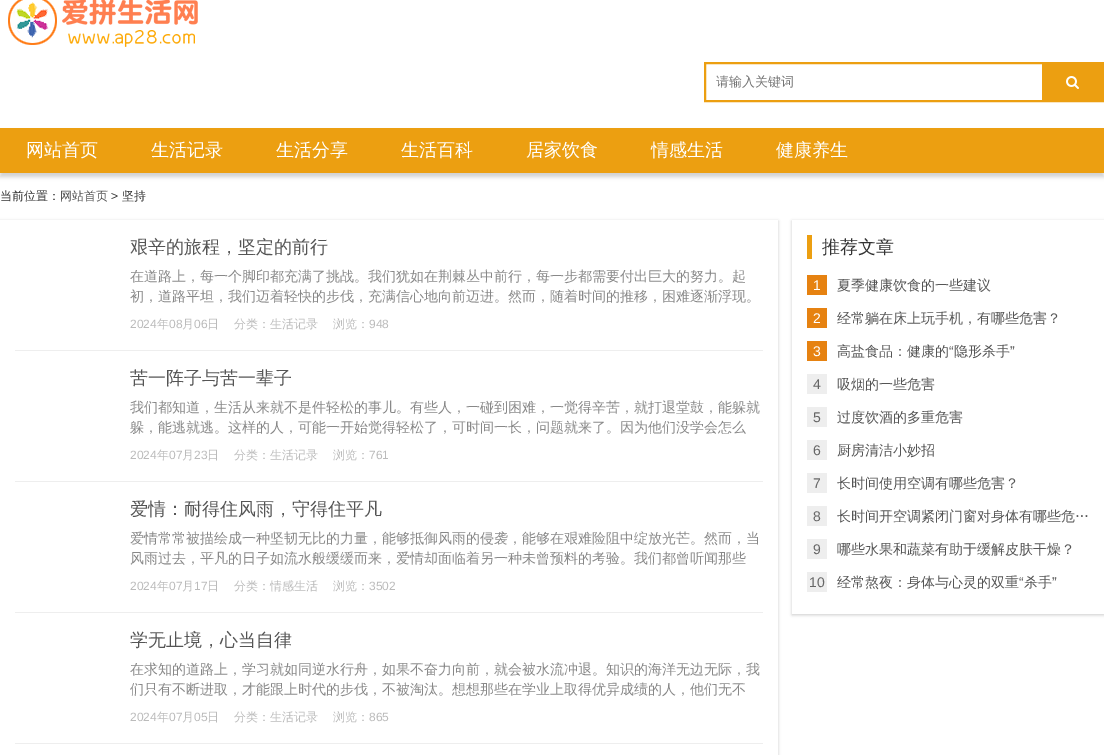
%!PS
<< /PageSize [1104 755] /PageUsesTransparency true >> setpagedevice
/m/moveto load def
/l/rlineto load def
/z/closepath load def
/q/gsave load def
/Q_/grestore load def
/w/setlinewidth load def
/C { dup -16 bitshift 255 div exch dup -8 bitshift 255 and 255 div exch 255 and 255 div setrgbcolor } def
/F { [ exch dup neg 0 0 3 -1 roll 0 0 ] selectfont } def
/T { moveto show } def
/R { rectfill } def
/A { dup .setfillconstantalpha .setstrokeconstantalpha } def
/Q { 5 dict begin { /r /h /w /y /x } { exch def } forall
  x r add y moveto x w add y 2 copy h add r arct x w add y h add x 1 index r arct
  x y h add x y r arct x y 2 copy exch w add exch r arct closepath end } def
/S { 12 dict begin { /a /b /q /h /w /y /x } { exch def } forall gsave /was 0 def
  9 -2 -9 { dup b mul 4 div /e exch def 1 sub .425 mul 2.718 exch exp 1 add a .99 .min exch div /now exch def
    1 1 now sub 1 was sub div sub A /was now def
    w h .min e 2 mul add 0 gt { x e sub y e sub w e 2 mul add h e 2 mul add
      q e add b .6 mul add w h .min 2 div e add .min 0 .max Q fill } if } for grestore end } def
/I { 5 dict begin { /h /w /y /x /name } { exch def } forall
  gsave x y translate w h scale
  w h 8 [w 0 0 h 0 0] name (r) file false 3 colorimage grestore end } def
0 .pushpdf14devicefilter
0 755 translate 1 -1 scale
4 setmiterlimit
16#FFFFFF C
0 0 1104 755 R
(1.rgb) 8 0 190 47 I
16#EC9F11 C
2 w
705 63 398 38 rectstroke
/WenQuanYiZenHei-Medium 13 F
16#757575 C
(请输入关键词) 716 86 T
16#EC9F11 C
1042 64 60 36 R
(2.rgb) 1066 76 13 13 I
16#D0D0D0 C
0 132 1104 45 0 2 1 S
16#EC9F11 C
0 128 1104 45 R
/WenQuanYiZenHei-Medium 18 F
16#FFFFFF C
(网站首页) 26 156 T
(生活记录) 151 156 T
(生活分享) 276 156 T
(生活百科) 401 156 T
(居家饮食) 526 156 T
(情感生活) 651 156 T
(健康养生) 776 156 T
/WenQuanYiZenHei-Medium 12 F
16#333333 C
(当前位置：) 0 200 T
16#555555 C
(网站首页) 60 200 T
/LiberationSans-Regular 12 F
16#333333 C
(>) 111 200 T
/WenQuanYiZenHei-Medium 12 F
(坚持) 122 200 T
q
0 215 m 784 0 l 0 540 l -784 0 l z 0 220 m 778 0 l 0 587 l -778 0 l z eoclip newpath
16#CCCCCC C
0 221 778 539 0 1.5 1 S
Q_
/WenQuanYiZenHei-Medium 18 F
16#555555 C
(艰辛的旅程，坚定的前行) 130 253 T
/WenQuanYiZenHei-Medium 14 F
16#888888 C
(在道路上，每一个脚印都充满了挑战。我们犹如在荆棘丛中前行，每一步都需要付出巨大的努力。起) 130 281 T
(初，道路平坦，我们迈着轻快的步伐，充满信心地向前迈进。然而，随着时间的推移，困难逐渐浮现。) 130 301 T
/LiberationSans-Regular 12 F
16#BBBBBB C
(2024) 130 328 T
/WenQuanYiZenHei-Medium 12 F
(年) 157 328 T
/LiberationSans-Regular 12 F
(08) 169 328 T
/WenQuanYiZenHei-Medium 12 F
(月) 182 328 T
/LiberationSans-Regular 12 F
(06) 194 328 T
/WenQuanYiZenHei-Medium 12 F
(日) 207 328 T
(分类：生活记录) 234 328 T
(浏览：) 333 328 T
/LiberationSans-Regular 12 F
(948) 369 328 T
16#EEEEEE C
15 350 748 1 R
/WenQuanYiZenHei-Medium 18 F
16#555555 C
(苦一阵子与苦一辈子) 130 384 T
/WenQuanYiZenHei-Medium 14 F
16#888888 C
(我们都知道，生活从来就不是件轻松的事儿。有些人，一碰到困难，一觉得辛苦，就打退堂鼓，能躲就) 130 412 T
(躲，能逃就逃。这样的人，可能一开始觉得轻松了，可时间一长，问题就来了。因为他们没学会怎么) 130 432 T
/LiberationSans-Regular 12 F
16#BBBBBB C
(2024) 130 459 T
/WenQuanYiZenHei-Medium 12 F
(年) 157 459 T
/LiberationSans-Regular 12 F
(07) 169 459 T
/WenQuanYiZenHei-Medium 12 F
(月) 182 459 T
/LiberationSans-Regular 12 F
(23) 194 459 T
/WenQuanYiZenHei-Medium 12 F
(日) 207 459 T
(分类：生活记录) 234 459 T
(浏览：) 333 459 T
/LiberationSans-Regular 12 F
(761) 369 459 T
16#EEEEEE C
15 481 748 1 R
/WenQuanYiZenHei-Medium 18 F
16#555555 C
(爱情：耐得住风雨，守得住平凡) 130 515 T
/WenQuanYiZenHei-Medium 14 F
16#888888 C
(爱情常常被描绘成一种坚韧无比的力量，能够抵御风雨的侵袭，能够在艰难险阻中绽放光芒。然而，当) 130 543 T
(风雨过去，平凡的日子如流水般缓缓而来，爱情却面临着另一种未曾预料的考验。我们都曾听闻那些) 130 563 T
/LiberationSans-Regular 12 F
16#BBBBBB C
(2024) 130 590 T
/WenQuanYiZenHei-Medium 12 F
(年) 157 590 T
/LiberationSans-Regular 12 F
(07) 169 590 T
/WenQuanYiZenHei-Medium 12 F
(月) 182 590 T
/LiberationSans-Regular 12 F
(17) 194 590 T
/WenQuanYiZenHei-Medium 12 F
(日) 207 590 T
(分类：情感生活) 234 590 T
(浏览：) 333 590 T
/LiberationSans-Regular 12 F
(3502) 369 590 T
16#EEEEEE C
15 612 748 1 R
/WenQuanYiZenHei-Medium 18 F
16#555555 C
(学无止境，心当自律) 130 646 T
/WenQuanYiZenHei-Medium 14 F
16#888888 C
(在求知的道路上，学习就如同逆水行舟，如果不奋力向前，就会被水流冲退。知识的海洋无边无际，我) 130 674 T
(们只有不断进取，才能跟上时代的步伐，不被淘汰。想想那些在学业上取得优异成绩的人，他们无不) 130 694 T
/LiberationSans-Regular 12 F
16#BBBBBB C
(2024) 130 721 T
/WenQuanYiZenHei-Medium 12 F
(年) 157 721 T
/LiberationSans-Regular 12 F
(07) 169 721 T
/WenQuanYiZenHei-Medium 12 F
(月) 182 721 T
/LiberationSans-Regular 12 F
(05) 194 721 T
/WenQuanYiZenHei-Medium 12 F
(日) 207 721 T
(分类：生活记录) 234 721 T
(浏览：) 333 721 T
/LiberationSans-Regular 12 F
(865) 369 721 T
16#EEEEEE C
15 743 748 1 R
q
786 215 m 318 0 l 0 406 l -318 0 l z 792 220 m 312 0 l 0 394 l -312 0 l z eoclip newpath
16#CCCCCC C
792 221 312 394 0 1.5 1 S
Q_
16#EC9F11 C
807 235 5 24 R
/WenQuanYiZenHei-Medium 18 F
16#333333 C
(推荐文章) 822 253 T
16#E68211 C
807 275 20 20 R
/LiberationSans-Regular 14 F
16#FFFFFF C
(1) 813 290 T
/WenQuanYiZenHei-Medium 14 F
16#555555 C
(夏季健康饮食的一些建议) 837 290 T
16#E68211 C
807 308 20 20 R
/LiberationSans-Regular 14 F
16#FFFFFF C
(2) 813 323 T
/WenQuanYiZenHei-Medium 14 F
16#555555 C
(经常躺在床上玩手机，有哪些危害？) 837 323 T
16#E68211 C
807 341 20 20 R
/LiberationSans-Regular 14 F
16#FFFFFF C
(3) 813 356 T
/WenQuanYiZenHei-Medium 14 F
16#555555 C
(高盐食品：健康的) 837 356 T
/LiberationSans-Regular 14 F
(“) 949 356 T
/WenQuanYiZenHei-Medium 14 F
(隐形杀手) 954 356 T
/LiberationSans-Regular 14 F
(”) 1010 356 T
16#EEEEEE C
807 374 20 20 R
16#666666 C
(4) 813 389 T
/WenQuanYiZenHei-Medium 14 F
16#555555 C
(吸烟的一些危害) 837 389 T
16#EEEEEE C
807 407 20 20 R
/LiberationSans-Regular 14 F
16#666666 C
(5) 813 422 T
/WenQuanYiZenHei-Medium 14 F
16#555555 C
(过度饮酒的多重危害) 837 422 T
16#EEEEEE C
807 440 20 20 R
/LiberationSans-Regular 14 F
16#666666 C
(6) 813 455 T
/WenQuanYiZenHei-Medium 14 F
16#555555 C
(厨房清洁小妙招) 837 455 T
16#EEEEEE C
807 473 20 20 R
/LiberationSans-Regular 14 F
16#666666 C
(7) 813 488 T
/WenQuanYiZenHei-Medium 14 F
16#555555 C
(长时间使用空调有哪些危害？) 837 488 T
16#EEEEEE C
807 506 20 20 R
/LiberationSans-Regular 14 F
16#666666 C
(8) 813 521 T
/WenQuanYiZenHei-Medium 14 F
16#555555 C
(长时间开空调紧闭门窗对身体有哪些危…) 837 521 T
16#EEEEEE C
807 539 20 20 R
/LiberationSans-Regular 14 F
16#666666 C
(9) 813 554 T
/WenQuanYiZenHei-Medium 14 F
16#555555 C
(哪些水果和蔬菜有助于缓解皮肤干燥？) 837 554 T
16#EEEEEE C
807 572 20 20 R
/LiberationSans-Regular 14 F
16#666666 C
(10) 809 587 T
/WenQuanYiZenHei-Medium 14 F
16#555555 C
(经常熬夜：身体与心灵的双重) 837 587 T
/LiberationSans-Regular 14 F
(“) 1019 587 T
/WenQuanYiZenHei-Medium 14 F
(杀手) 1024 587 T
/LiberationSans-Regular 14 F
(”) 1052 587 T
.poppdf14devicefilter showpage
